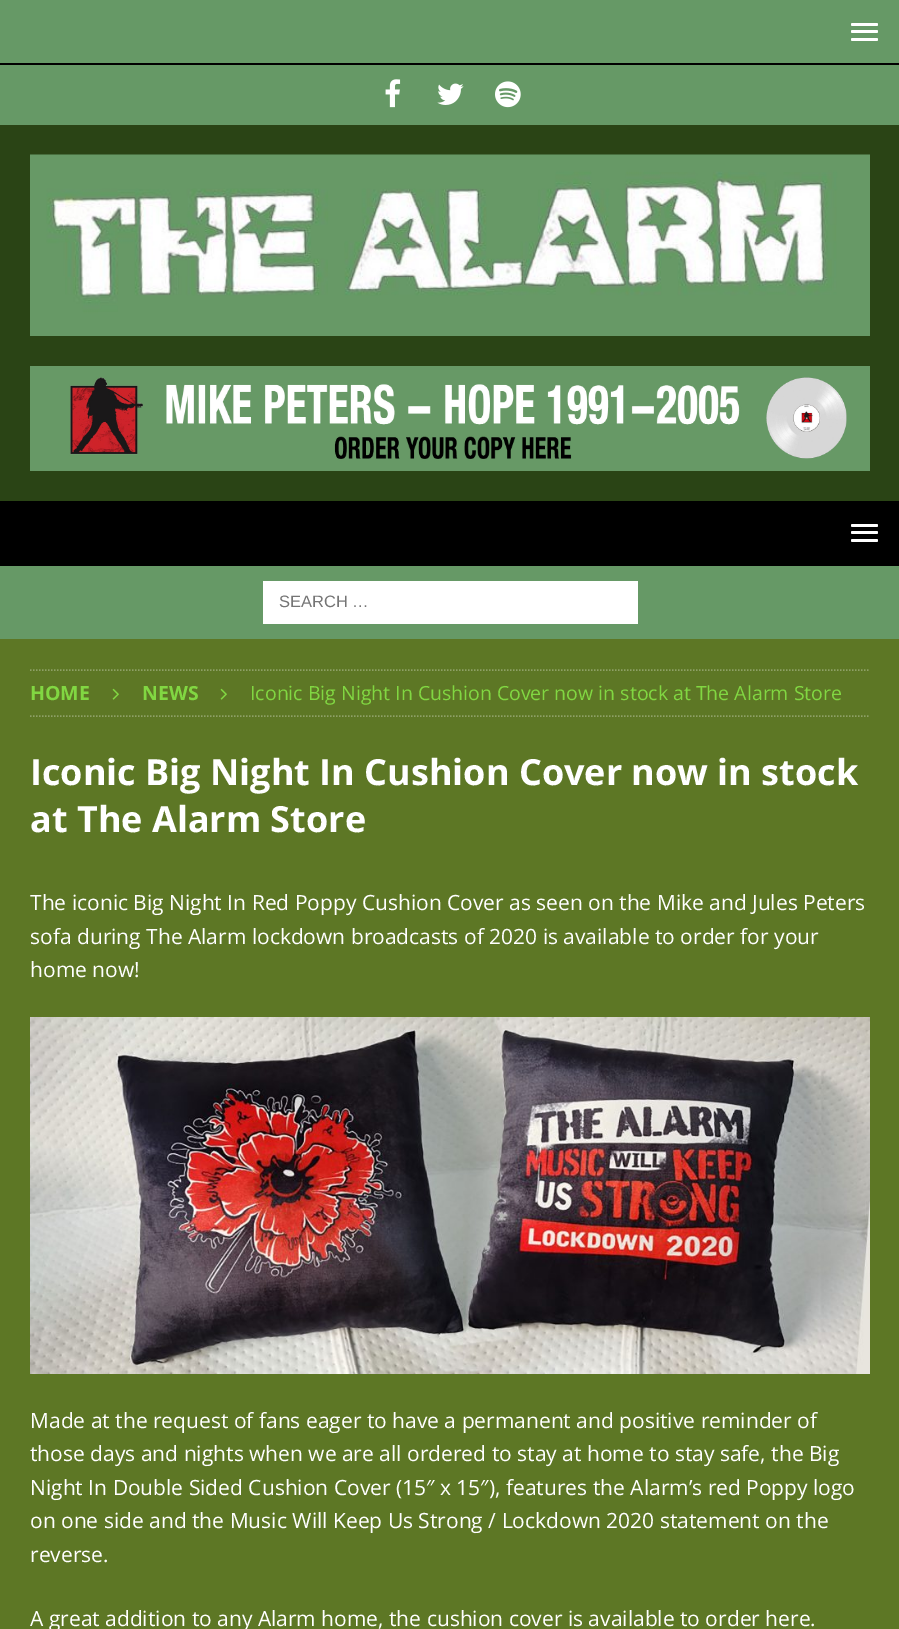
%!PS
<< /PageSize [899 1629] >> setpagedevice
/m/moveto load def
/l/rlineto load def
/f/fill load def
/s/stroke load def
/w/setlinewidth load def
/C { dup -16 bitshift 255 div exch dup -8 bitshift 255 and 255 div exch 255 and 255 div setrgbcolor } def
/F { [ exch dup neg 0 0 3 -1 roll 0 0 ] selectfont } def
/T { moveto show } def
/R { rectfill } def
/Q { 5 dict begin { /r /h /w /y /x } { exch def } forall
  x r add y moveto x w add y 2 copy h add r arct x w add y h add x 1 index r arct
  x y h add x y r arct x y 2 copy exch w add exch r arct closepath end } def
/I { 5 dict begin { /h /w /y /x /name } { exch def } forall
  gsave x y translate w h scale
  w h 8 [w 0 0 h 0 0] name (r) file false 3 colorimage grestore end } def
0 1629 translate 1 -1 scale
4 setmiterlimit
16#669966 C
0 0 899 1629 R
16#000000 C
0 63 899 2 R
16#FFFFFF C
851 23 27 3 1.5 Q f
851 30 27 3 1.5 Q f
851 38 27 3 1.5 Q f
(1.rgb) 385 79 16 29 I
(2.rgb) 437 83 27 22 I
(3.rgb) 495 81 26 27 I
16#2A4415 C
0 125 899 376 R
(4.rgb) 30 154 840 182 I
(5.rgb) 30 366 840 105 I
16#000000 C
0 501 899 65 R
16#FFFFFF C
851 524 27 3 1.5 Q f
851 531 27 3 1.5 Q f
851 539 27 3 1.5 Q f
263 581 375 43 R
/LiberationSans-Regular 16.5 F
16#757575 C
(SEARCH …) 279 607 T
16#5D7725 C
0 639 899 990 R
16#8EA066 C
1.5 w
[1.5 1.5] 0 setdash
30 670 m 840 0 l s
30 716 m 840 0 l s
/OpenSans-Bold 19.5 F
16#81D742 C
(HOME) 30 700 T
(6.rgb) 112 688 7 12 I
(NEWS) 142 700 T
(6.rgb) 220 688 7 12 I
/OpenSans-Regular 19.5 F
(Iconic Big Night In Cushion Cover now in stock at The Alarm Store) 250 700 T
/OpenSans-Bold 36 F
16#FFFFFF C
(Iconic Big Night In Cushion Cover now in stock) 30 785 T
(at The Alarm Store) 30 832 T
/OpenSans-Regular 21 F
(The iconic Big Night In Red Poppy Cushion Cover as seen on the Mike and Jules Peters) 30 910 T
(sofa during The Alarm lockdown broadcasts of 2020 is available to order for your) 30 944 T
(home now!) 30 977 T
(7.rgb) 30 1017 840 357 I
(Made at the request of fans eager to have a permanent and positive reminder of) 30 1428 T
(those days and nights when we are all ordered to stay at home to stay safe, the Big) 30 1461 T
(Night In Double Sided Cushion Cover \(15″ x 15″\), features the Alarm’s red Poppy logo) 30 1495 T
(on one side and the Music Will Keep Us Strong / Lockdown 2020 statement on the) 30 1528 T
(reverse.) 30 1562 T
(A great addition to any Alarm home, the cushion cover is available to order here.) 30 1626 T
showpage
